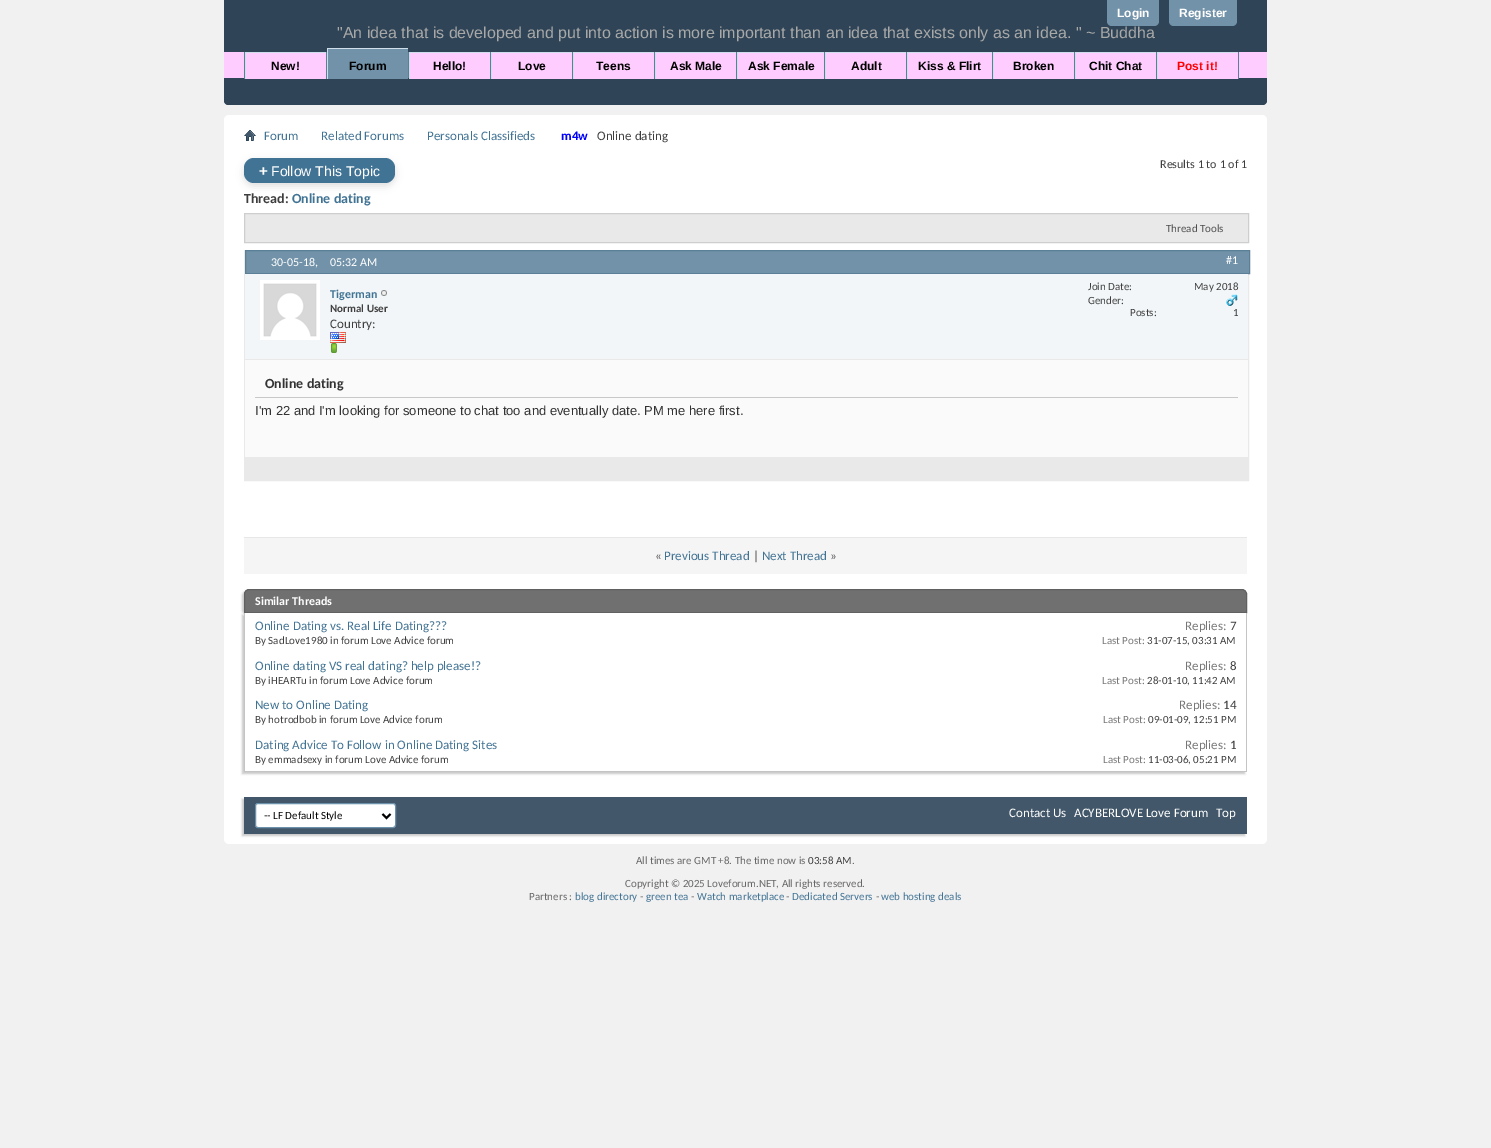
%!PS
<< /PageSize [1491 1148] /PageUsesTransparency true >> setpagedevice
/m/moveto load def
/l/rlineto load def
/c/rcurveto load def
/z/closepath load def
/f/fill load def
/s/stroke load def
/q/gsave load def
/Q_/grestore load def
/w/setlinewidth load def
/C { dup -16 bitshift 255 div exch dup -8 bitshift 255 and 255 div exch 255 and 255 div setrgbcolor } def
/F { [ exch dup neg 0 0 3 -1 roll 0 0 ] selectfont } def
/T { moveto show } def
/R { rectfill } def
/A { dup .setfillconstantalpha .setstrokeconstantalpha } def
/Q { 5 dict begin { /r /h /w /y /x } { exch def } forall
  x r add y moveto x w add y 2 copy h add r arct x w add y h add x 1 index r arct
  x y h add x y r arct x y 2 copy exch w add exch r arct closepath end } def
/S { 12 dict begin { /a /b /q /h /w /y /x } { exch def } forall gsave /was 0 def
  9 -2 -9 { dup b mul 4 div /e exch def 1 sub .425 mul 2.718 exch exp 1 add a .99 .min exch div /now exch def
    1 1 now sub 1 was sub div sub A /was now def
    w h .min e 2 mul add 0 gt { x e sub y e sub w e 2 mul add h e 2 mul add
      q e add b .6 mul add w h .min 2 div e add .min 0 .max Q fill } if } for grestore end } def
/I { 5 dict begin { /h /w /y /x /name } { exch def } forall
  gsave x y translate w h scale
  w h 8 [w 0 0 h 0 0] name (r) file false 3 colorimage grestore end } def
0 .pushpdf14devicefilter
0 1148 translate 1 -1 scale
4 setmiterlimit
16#F1F1F1 C
0 0 1491 1148 R
16#2F4456 C
224 0 m 1043 0 l 0 100 l 0 3 -2 5 -5 5 c -1033 0 l -3 0 -5 -2 -5 -5 c z f
16#7192A8 C
1107 0 m 52 0 l 0 21 l 0 3 -2 5 -5 5 c -42 0 l -3 0 -5 -2 -5 -5 c z f
/LiberationSans-Bold 12 F
16#FFFFFF C
(Login) 1117 17 T
16#7192A8 C
1169 0 m 68 0 l 0 21 l 0 3 -2 5 -5 5 c -58 0 l -3 0 -5 -2 -5 -5 c z f
16#FFFFFF C
(Register) 1179 17 T
/LiberationSans-Regular 16 F
16#A8A8A8 C
("An idea that is developed and put into action is more important than an idea that exists only as an idea. " ~ Buddha) 337 38 T
16#2F4456 C
224 52 m 1043 0 l 0 48 l 0 3 -2 5 -5 5 c -1033 0 l -3 0 -5 -2 -5 -5 c z f
16#FFCCFF C
224 52 1043 26 R
16#5A7F97 C
326 52 1 27 R
244 52 1 27 R
16#FFCCFF C
246 78 80 1 R
16#CEDFEB C
245 52 81 1 R
245 52 1 27 R
/LiberationSans-Bold 12 F
16#000000 C
(New!) 271 70 T
16#5A7F97 C
408 52 1 26 R
16#7192A8 C
328 49 80 30 R
16#CEDFEB C
327 48 81 1 R
327 48 1 31 R
16#000000 C
(Forum) 349 70 T
16#5A7F97 C
490 52 1 27 R
16#FFCCFF C
410 78 80 1 R
16#CEDFEB C
409 52 81 1 R
409 52 1 27 R
16#000000 C
(Hello!) 433 70 T
16#5A7F97 C
572 52 1 27 R
16#FFCCFF C
492 78 80 1 R
16#CEDFEB C
491 52 81 1 R
491 52 1 27 R
16#000000 C
(Love) 518 70 T
16#5A7F97 C
654 52 1 27 R
16#FFCCFF C
574 78 80 1 R
16#CEDFEB C
573 52 81 1 R
573 52 1 27 R
16#000000 C
(Teens) 596 70 T
16#5A7F97 C
736 52 1 27 R
16#FFCCFF C
656 78 80 1 R
16#CEDFEB C
655 52 81 1 R
655 52 1 27 R
16#000000 C
(Ask Male) 670 70 T
16#5A7F97 C
824 52 1 27 R
16#FFCCFF C
738 78 86 1 R
16#CEDFEB C
737 52 87 1 R
737 52 1 27 R
16#000000 C
(Ask Female) 748 70 T
16#5A7F97 C
906 52 1 27 R
16#FFCCFF C
826 78 80 1 R
16#CEDFEB C
825 52 81 1 R
825 52 1 27 R
16#000000 C
(Adult) 851 70 T
16#5A7F97 C
992 52 1 27 R
16#FFCCFF C
908 78 84 1 R
16#CEDFEB C
907 52 85 1 R
907 52 1 27 R
16#000000 C
(Kiss & Flirt) 918 70 T
16#5A7F97 C
1074 52 1 27 R
16#FFCCFF C
994 78 80 1 R
16#CEDFEB C
993 52 81 1 R
993 52 1 27 R
16#000000 C
(Broken) 1013 70 T
16#5A7F97 C
1156 52 1 27 R
16#FFCCFF C
1076 78 80 1 R
16#CEDFEB C
1075 52 81 1 R
1075 52 1 27 R
16#000000 C
(Chit Chat) 1089 70 T
16#5A7F97 C
1238 52 1 27 R
16#FFCCFF C
1158 78 80 1 R
16#CEDFEB C
1157 52 81 1 R
1157 52 1 27 R
16#FF0000 C
(Post it!) 1177 70 T
16#FFFFFF C
224 115 1043 729 5 Q f
(1.rgb) 244 130 12 11 I
/Carlito-Regular 13 F
16#417394 C
(Forum) 264 140 T
(Related Forums) 321 140 T
(Personals Classifieds) 427 140 T
/Carlito-Bold 13 F
16#0000FF C
(m4w) 561 140 T
/Carlito-Regular 13 F
16#3E3E3E C
(Online dating) 597 140 T
/Carlito-Regular 12 F
(Results 1 to 1 of 1) 1160 168 T
16#DDDDDD C
244 161 151 25 10 4 1 S
16#417394 C
244 158 151 25 10 Q f
/LiberationSans-Bold 15 F
16#FFFFFF C
(+) 259 176 T
/LiberationSans-Regular 14 F
(Follow This Topic) 271 176 T
/Carlito-Bold 14 F
16#3E3E3E C
(Thread:) 244 203 T
16#417394 C
(Online dating) 292 203 T
16#E9E9E9 C
244.5 213.5 m 1004 0 l 0 29 l -1004 0 l z q f Q_
16#CECECE C
s
/Carlito-Regular 11 F
16#4E4E4E C
(Thread Tools) 1166 232 T
16#E9E9E9 C
244.5 250.5 1004 230 rectstroke
16#7192A8 C
245.5 250.5 m 1004 0 l 0 23 l -1004 0 l z q f Q_
16#5A7F97 C
s
/Carlito-Regular 12 F
16#FFFFFF C
(30-05-18,) 271 266 T
(05:32 AM) 330 266 T
(#1) 1226 264 T
16#F2F6F8 C
245 274 1003 85 R
16#E9E9E9 C
245 359 1003 1 R
(2.rgb) 260 280 60 60 I
/Carlito-Bold 12 F
16#417394 C
(Tigerman) 330 298 T
(3.rgb) 381 290 6 6 I
/Carlito-Bold 11 F
16#3E3E3E C
(Normal User) 330 312 T
/Carlito-Regular 13 F
(Country:) 330 328 T
(4.rgb) 330 332 16 11 I
(5.rgb) 330 343 7 10 I
/Carlito-Regular 11 F
(Join Date:) 1088 290 T
(May 2018) 1194 290 T
(Gender:) 1088 304 T
(6.rgb) 1226 294 12 12 I
(Posts:) 1130 316 T
(1) 1233 316 T
16#FAFAFA C
245 360 1003 97 R
16#C8C8C8 C
255 397 983 1 R
/Carlito-Bold 14 F
16#333333 C
(Online dating) 265 388 T
/LiberationSans-Regular 13 F
(I'm 22 and I'm looking for someone to chat too and eventually date. PM me here first.) 255 415 T
16#E9E9E9 C
245 457 1003 23 R
16#F5F5F5 C
244 538 1003 36 R
16#E7E7E7 C
244 537 1003 1 R
/Carlito-Regular 13 F
16#5D5D5D C
(«) 655 560 T
16#417394 C
(Previous Thread) 664 560 T
16#5D5D5D C
(|) 753 560 T
16#417394 C
(Next Thread) 762 560 T
16#5D5D5D C
(») 830 560 T
16#C8C8C8 C
242 591 1003 24 5 1 1 S
16#707070 C
249 589.5 m 993 0 l 2.5 0 4.5 2 4.5 4.5 c 0 18.5 l -1002 0 l 0 -18.5 l 0 -2.5 2 -4.5 4.5 -4.5 c z q f Q_
16#606060 C
s
/Carlito-Bold 12 F
16#FFFFFF C
(Similar Threads) 255 605 T
16#C8C8C8 C
242 615 1003 159 0 1 1 S
16#FFFFFF C
245 613 1001 158 R
16#C4C4C4 C
1246 613 1 159 R
244 771 1003 1 R
244 613 1 159 R
/Carlito-Regular 13 F
16#417394 C
(Online Dating vs. Real Life Dating???) 255 630 T
/Carlito-Regular 11 F
16#3E3E3E C
(By SadLove1980 in forum Love Advice forum) 255 644 T
/Carlito-Regular 13 F
16#777777 C
(Replies:) 1185 630 T
16#3E3E3E C
(7) 1230 630 T
/Carlito-Regular 11 F
16#777777 C
(Last Post:) 1102 644 T
16#3E3E3E C
(31-07-15, 03:31 AM) 1147 644 T
/Carlito-Regular 13 F
16#417394 C
(Online dating VS real dating? help please!?) 255 670 T
/Carlito-Regular 11 F
16#3E3E3E C
(By iHEARTu in forum Love Advice forum) 255 684 T
/Carlito-Regular 13 F
16#777777 C
(Replies:) 1185 670 T
16#3E3E3E C
(8) 1230 670 T
/Carlito-Regular 11 F
16#777777 C
(Last Post:) 1102 684 T
16#3E3E3E C
(28-01-10, 11:42 AM) 1147 684 T
/Carlito-Regular 13 F
16#417394 C
(New to Online Dating) 255 709 T
/Carlito-Regular 11 F
16#3E3E3E C
(By hotrodbob in forum Love Advice forum) 255 723 T
/Carlito-Regular 13 F
16#777777 C
(Replies:) 1179 709 T
16#3E3E3E C
(14) 1223 709 T
/Carlito-Regular 11 F
16#777777 C
(Last Post:) 1103 723 T
16#3E3E3E C
(09-01-09, 12:51 PM) 1148 723 T
/Carlito-Regular 13 F
16#417394 C
(Dating Advice To Follow in Online Dating Sites) 255 749 T
/Carlito-Regular 11 F
16#3E3E3E C
(By emmadsexy in forum Love Advice forum) 255 763 T
/Carlito-Regular 13 F
16#777777 C
(Replies:) 1185 749 T
16#3E3E3E C
(1) 1230 749 T
/Carlito-Regular 11 F
16#777777 C
(Last Post:) 1103 763 T
16#3E3E3E C
(11-03-06, 05:21 PM) 1148 763 T
16#C8C8C8 C
242 799 1003 37 0 1 1 S
16#425769 C
244 797 1003 37 R
16#FFFFFF C
255.5 803.5 140 24 2.5 Q q f Q_
16#6B91AB C
s
16#000000 C
2 w
382.5 814 m 4 4 l 4 -4 l s
(-- LF Default Style) 264 819 T
/Carlito-Regular 13 F
16#FFFFFF C
(Contact Us) 1009 817 T
(ACYBERLOVE Love Forum) 1074 817 T
(Top) 1216 817 T
/Carlito-Regular 11 F
16#666666 C
(All times are GMT +8. The time now is) 636 864 T
16#3E3E3E C
(03:58 AM) 808 864 T
16#666666 C
(.) 852 864 T
(Copyright © 2025 Loveforum.NET, All rights reserved.) 625 887 T
(Partners :) 529 900 T
16#417394 C
(blog directory) 575 900 T
16#666666 C
(-) 640 900 T
16#417394 C
(green tea) 646 900 T
16#666666 C
(-) 691 900 T
16#417394 C
(Watch marketplace) 697 900 T
16#666666 C
(-) 786 900 T
16#417394 C
(Dedicated Servers) 792 900 T
16#666666 C
(-) 876 900 T
16#417394 C
(web hosting deals) 881 900 T
.poppdf14devicefilter showpage
